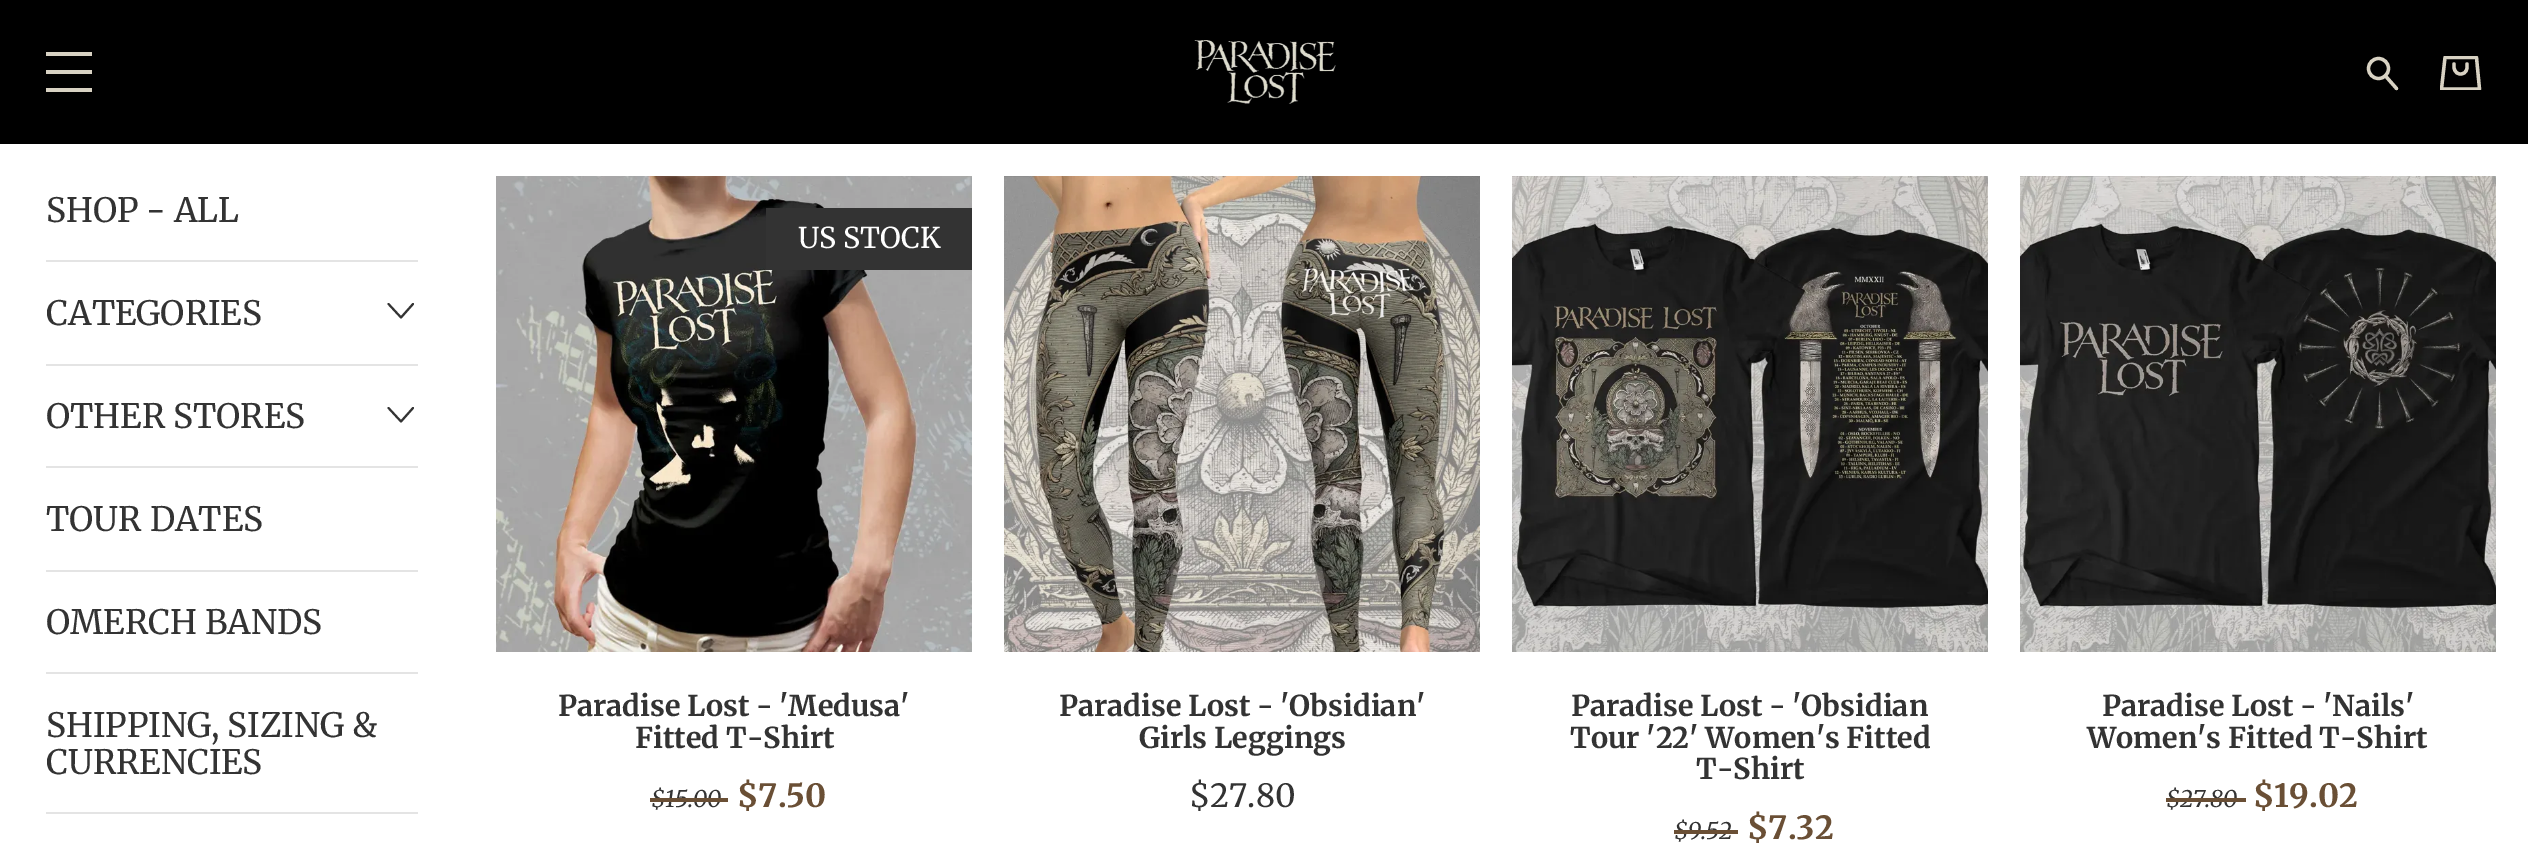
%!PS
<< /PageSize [2528 856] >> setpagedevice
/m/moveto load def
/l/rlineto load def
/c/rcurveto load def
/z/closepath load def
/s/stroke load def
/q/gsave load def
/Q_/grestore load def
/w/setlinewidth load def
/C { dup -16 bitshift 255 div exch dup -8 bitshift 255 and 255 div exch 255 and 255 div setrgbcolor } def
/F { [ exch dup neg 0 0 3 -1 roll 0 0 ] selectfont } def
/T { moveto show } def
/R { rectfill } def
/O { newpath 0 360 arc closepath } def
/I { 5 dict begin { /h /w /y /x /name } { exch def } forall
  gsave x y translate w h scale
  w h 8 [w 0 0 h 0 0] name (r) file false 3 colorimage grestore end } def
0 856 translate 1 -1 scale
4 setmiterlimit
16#FFFFFF C
0 0 2528 856 R
16#000000 C
0 0 2528 144 R
16#D8D2C3 C
46 52 46 4 R
46 70 46 4 R
46 88 46 4 R
(1.rgb) 1194 40 142 64 I
3.3 w
2378.5 68.5 10 O s
1 setlinecap
1 setlinejoin
2385.5 76 m 11 12.5 l s
q
2440 56 42 34 rectclip
2445 57.5 m -3.5 31.5 l 38 0 l -3 -31.5 l z s
Q_
2467 64 m 0 3.5 l 0 0 0 6.5 -6.5 6.5 c -6 0 -6.5 -6.5 -6.5 -6.5 c 0 -3.5 l s
16#E4E4E4 C
46 260 372 2 R
/Merriweather-Regular 33.5 F
16#333333 C
(SHOP - ALL) 46 222 T
16#E4E4E4 C
46 364 372 2 R
16#333333 C
(CATEGORIES) 46 325 T
2 w
413 304 m -12 13.5 l -12.5 -13.5 l s
16#E4E4E4 C
46 466 372 2 R
16#333333 C
(OTHER STORES) 46 428 T
413 408 m -12 13.5 l -12.5 -13.5 l s
16#E4E4E4 C
46 570 372 2 R
16#333333 C
(TOUR DATES) 46 531 T
16#E4E4E4 C
46 672 372 2 R
16#333333 C
(OMERCH BANDS) 46 634 T
16#E4E4E4 C
46 812 372 2 R
16#333333 C
(SHIPPING, SIZING &) 46 737 T
(CURRENCIES) 46 774 T
(2.rgb) 496 176 476 476 I
766 208 206 62 R
/Merriweather-Regular 28.75 F
16#FFFFFF C
(US STOCK) 798 248 T
/Merriweather-Bold 28.75 F
16#333333 C
(Paradise Lost - 'Medusa') 558 716 T
(Fitted T-Shirt) 635 748 T
/Merriweather-Italic 23 F
($15.00) 651 807 T
16#6A4F35 C
650 798 78 4 R
/Merriweather-Bold 32 F
($7.50) 737 807 T
(3.rgb) 1004 176 476 476 I
/Merriweather-Bold 28.75 F
16#333333 C
(Paradise Lost - 'Obsidian') 1059 716 T
(Girls Leggings) 1139 748 T
/Merriweather-Regular 32 F
($27.80) 1189 807 T
(4.rgb) 1512 176 476 476 I
/Merriweather-Bold 28.75 F
(Paradise Lost - 'Obsidian) 1571 716 T
(Tour '22' Women's Fitted) 1570 748 T
(T-Shirt) 1696 779 T
/Merriweather-Italic 23 F
($9.52) 1674 839 T
16#6A4F35 C
1674 830 64 4 R
/Merriweather-Bold 32 F
($7.32) 1747 839 T
(5.rgb) 2020 176 476 476 I
/Merriweather-Bold 28.75 F
16#333333 C
(Paradise Lost - 'Nails') 2102 716 T
(Women's Fitted T-Shirt) 2087 748 T
/Merriweather-Italic 23 F
($27.80) 2166 807 T
16#6A4F35 C
2166 798 80 4 R
/Merriweather-Bold 32 F
($19.02) 2253 807 T
showpage
